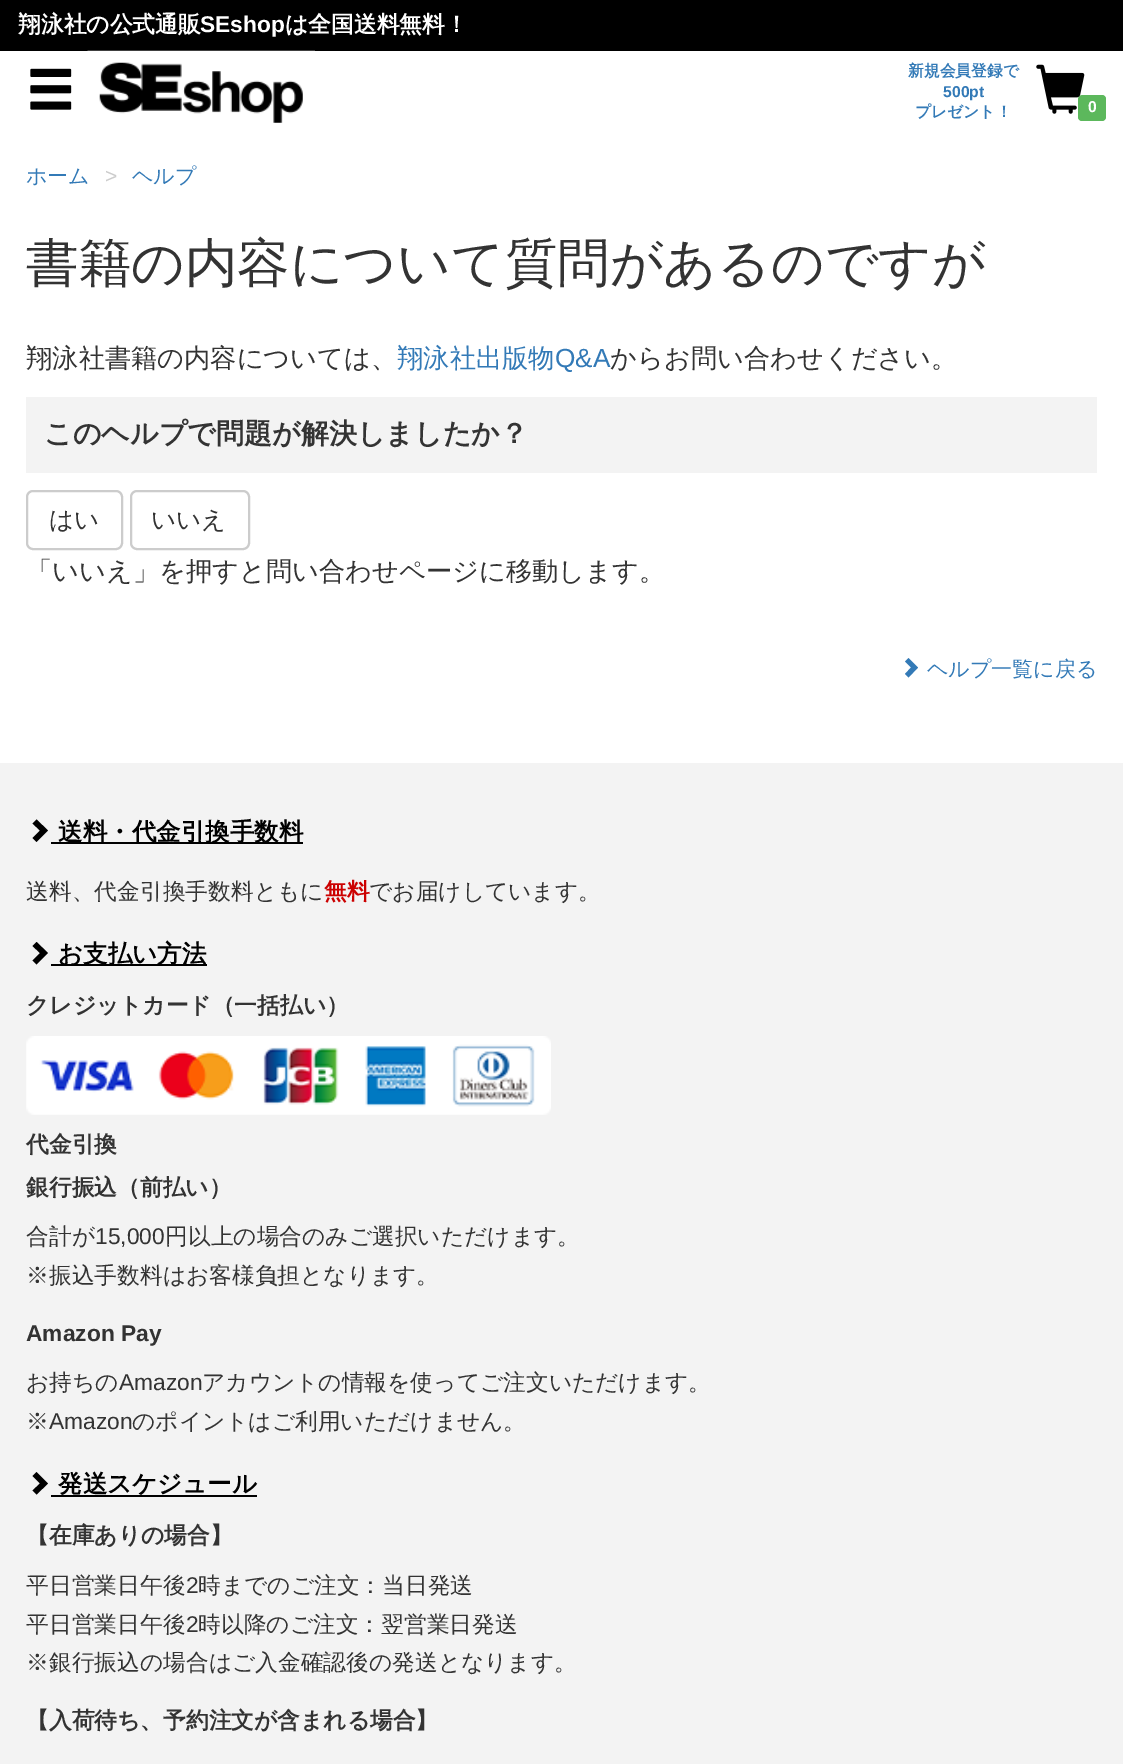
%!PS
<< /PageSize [1123 1764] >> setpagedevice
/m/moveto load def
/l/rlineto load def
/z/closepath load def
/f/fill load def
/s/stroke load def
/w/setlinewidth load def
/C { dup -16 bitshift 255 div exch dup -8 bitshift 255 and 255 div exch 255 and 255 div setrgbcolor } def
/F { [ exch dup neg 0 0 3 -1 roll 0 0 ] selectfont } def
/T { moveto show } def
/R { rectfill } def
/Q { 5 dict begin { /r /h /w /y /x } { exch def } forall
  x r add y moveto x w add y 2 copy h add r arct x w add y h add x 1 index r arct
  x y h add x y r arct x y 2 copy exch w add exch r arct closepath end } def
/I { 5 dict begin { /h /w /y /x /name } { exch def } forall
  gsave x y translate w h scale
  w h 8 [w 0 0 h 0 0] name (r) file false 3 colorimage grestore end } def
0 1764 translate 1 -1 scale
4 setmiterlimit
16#FFFFFF C
0 0 1123 1764 R
16#000000 C
0 0 1123 51 R
/WenQuanYiZenHei-Bold 22.75 F
16#FFFFFF C
(翔泳社の公式通販) 18 32 T
/LiberationSans-Bold 22.75 F
(SEshop) 200 32 T
/WenQuanYiZenHei-Bold 22.75 F
(は全国送料無料！) 285 32 T
(1.rgb) 30 68 42 42 I
(2.rgb) 87 50 228 73 I
/WenQuanYiZenHei-Bold 15.75 F
16#337AB7 C
(新規会員登録で) 908 76 T
/LiberationSans-Bold 15.75 F
(500pt) 943 97 T
/WenQuanYiZenHei-Bold 15.75 F
(プレゼント！) 915 117 T
16#5CB85C C
1078 95 28 26 4 Q f
(3.rgb) 1036 64 49 50 I
/LiberationSans-Bold 15.75 F
16#FFFFFF C
(0) 1088 112 T
/WenQuanYiZenHei-Medium 21 F
16#337AB7 C
(ホーム) 26 183 T
/LiberationSans-Regular 21 F
16#CCCCCC C
(>) 105 183 T
/WenQuanYiZenHei-Medium 21 F
16#337AB7 C
(ヘルプ) 132 183 T
/WenQuanYiZenHei-Medium 52.5 F
16#333333 C
(書籍の内容について質問があるのですが) 26 281 T
/WenQuanYiZenHei-Medium 26.25 F
(翔泳社書籍の内容については、) 26 367 T
16#337AB7 C
(翔泳社出版物) 397 367 T
/LiberationSans-Regular 26.25 F
(Q&A) 555 367 T
/WenQuanYiZenHei-Medium 26.25 F
16#333333 C
(からお問い合わせください。) 610 367 T
16#F3F3F3 C
26 397 1071 76 R
/WenQuanYiZenHei-Bold 28 F
16#333333 C
(このヘルプで問題が解決しましたか？) 44 443 T
16#CCCCCC C
2 w
27 491 95 58 6 Q s
/WenQuanYiZenHei-Medium 24.5 F
16#333333 C
(はい) 49 528 T
16#CCCCCC C
131 491 118 58 6 Q s
16#333333 C
(いいえ) 151 528 T
/WenQuanYiZenHei-Medium 26.25 F
(「いいえ」を押すと問い合わせページに移動します。) 26 580 T
16#337AB7 C
918 667.5 m -9.5 10 l -3.5 -3.5 l 6 -6.5 l -6 -6 l 3.5 -3.5 l z f
/WenQuanYiZenHei-Medium 21 F
(ヘルプ一覧に戻る) 927 676 T
16#F3F3F3 C
0 763 1123 1001 R
16#000000 C
48 830.5 m -11.5 11.5 l -4 -4 l 7.5 -7.5 l -7.5 -7 l 4 -4 l z f
51 842 252 2 R
/WenQuanYiZenHei-Bold 24.5 F
(送料・代金引換手数料) 58 840 T
/WenQuanYiZenHei-Medium 22.75 F
16#333333 C
(送料、代金引換手数料ともに) 26 899 T
/WenQuanYiZenHei-Bold 22.75 F
16#CC0000 C
(無料) 324 899 T
/WenQuanYiZenHei-Medium 22.75 F
16#333333 C
(でお届けしています。) 369 899 T
16#000000 C
48 953 m -11.5 11.5 l -4 -4 l 7.5 -7.5 l -7.5 -7 l 4 -4 l z f
51 964 156 2 R
/WenQuanYiZenHei-Bold 24.5 F
(お支払い方法) 58 962 T
/WenQuanYiZenHei-Bold 22.75 F
16#333333 C
(クレジットカード（一括払い）) 26 1013 T
(4.rgb) 26 1036 525 79 I
(代金引換) 26 1152 T
(銀行振込（前払い）) 26 1195 T
/WenQuanYiZenHei-Medium 22.75 F
(合計が) 26 1244 T
/LiberationSans-Regular 22.75 F
(15,000) 95 1244 T
/WenQuanYiZenHei-Medium 22.75 F
(円以上の場合のみご選択いただけます。) 165 1244 T
(※振込手数料はお客様負担となります。) 26 1283 T
/LiberationSans-Bold 22.75 F
(Amazon Pay) 26 1341 T
/WenQuanYiZenHei-Medium 22.75 F
(お持ちの) 26 1390 T
/LiberationSans-Regular 22.75 F
(Amazon) 119 1390 T
/WenQuanYiZenHei-Medium 22.75 F
(アカウントの情報を使ってご注文いただけます。) 202 1390 T
(※) 26 1429 T
/LiberationSans-Regular 22.75 F
(Amazon) 49 1429 T
/WenQuanYiZenHei-Medium 22.75 F
(のポイントはご利用いただけません。) 132 1429 T
16#000000 C
48 1483.5 m -11.5 11 l -4 -4 l 7.5 -7 l -7.5 -7.5 l 4 -4 l z f
/WenQuanYiZenHei-Bold 24.5 F
(発送スケジュール) 58 1492 T
51 1495 206 2 R
/WenQuanYiZenHei-Bold 22.75 F
16#333333 C
(【在庫ありの場合】) 26 1543 T
/WenQuanYiZenHei-Medium 22.75 F
(平日営業日午後) 26 1593 T
/LiberationSans-Regular 22.75 F
(2) 186 1593 T
/WenQuanYiZenHei-Medium 22.75 F
(時までのご注文：当日発送) 198 1593 T
(平日営業日午後) 26 1632 T
/LiberationSans-Regular 22.75 F
(2) 186 1632 T
/WenQuanYiZenHei-Medium 22.75 F
(時以降のご注文：翌営業日発送) 198 1632 T
(※銀行振込の場合はご入金確認後の発送となります。) 26 1670 T
/WenQuanYiZenHei-Bold 22.75 F
(【入荷待ち、予約注文が含まれる場合】) 26 1728 T
showpage
